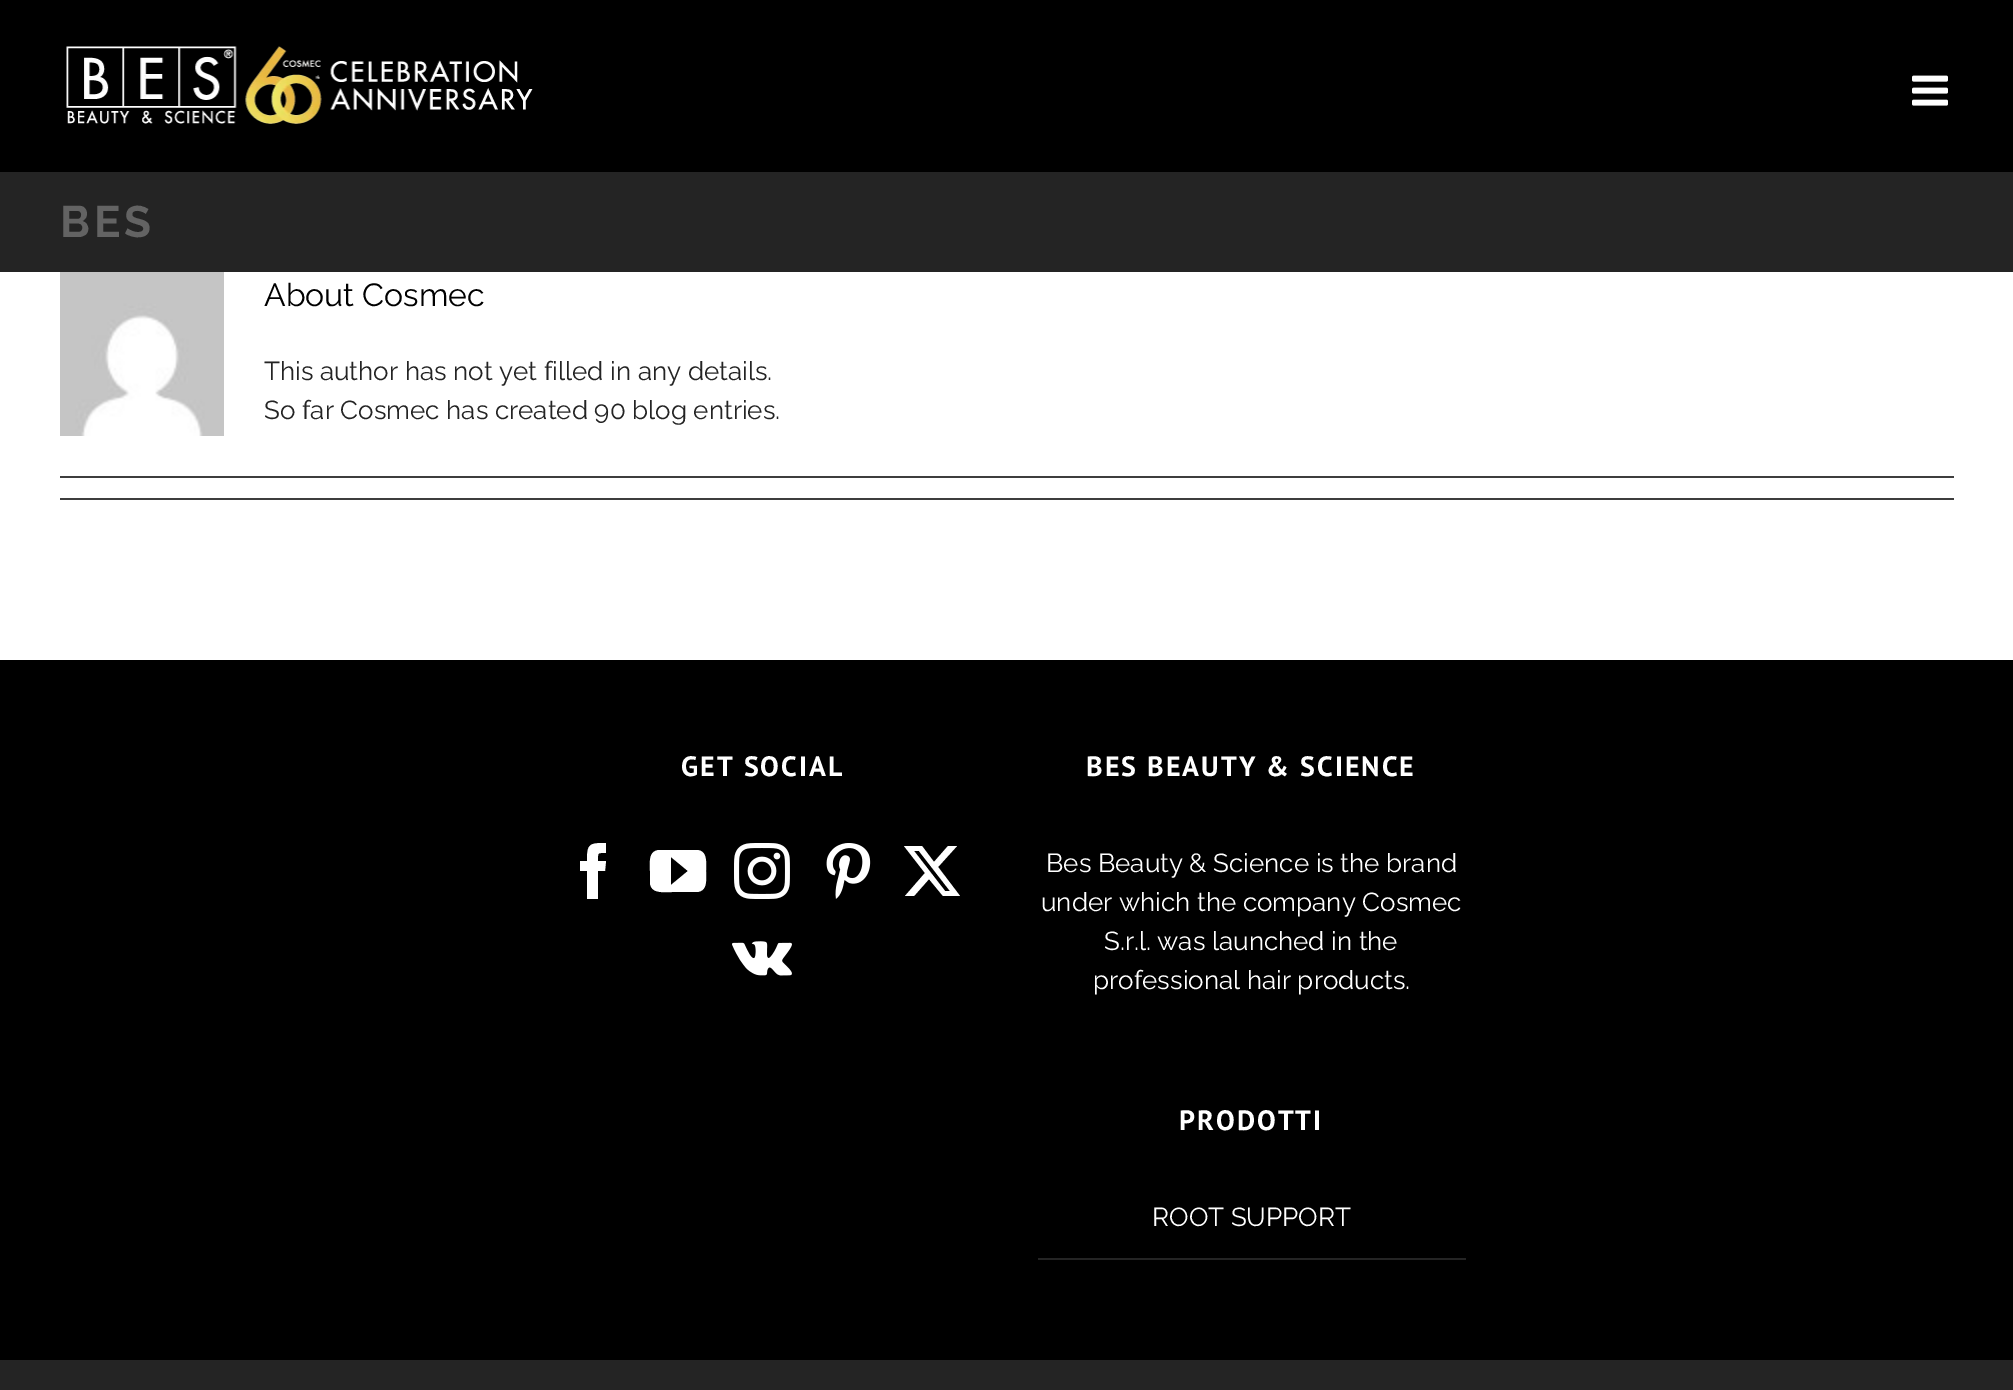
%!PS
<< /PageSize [2013 1390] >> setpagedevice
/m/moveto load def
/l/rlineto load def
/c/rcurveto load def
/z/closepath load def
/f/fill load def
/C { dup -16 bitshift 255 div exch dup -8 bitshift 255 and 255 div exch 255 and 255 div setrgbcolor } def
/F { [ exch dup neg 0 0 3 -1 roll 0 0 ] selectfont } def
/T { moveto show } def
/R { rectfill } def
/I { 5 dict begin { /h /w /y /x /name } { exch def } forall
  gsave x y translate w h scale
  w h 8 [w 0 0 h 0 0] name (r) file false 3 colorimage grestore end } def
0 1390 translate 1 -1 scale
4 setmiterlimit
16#FFFFFF C
0 0 2013 1390 R
16#000000 C
0 0 2013 172 R
(1.rgb) 66 46 467 78 I
(2.rgb) 1912 75 36 31 I
16#242424 C
0 172 2013 100 R
/Raleway-Bold 44 F
16#636363 C
60 237 m 4 0 (BES) ashow
(3.rgb) 60 272 164 164 I
/Raleway-Regular 32 F
16#000000 C
(About Cosmec) 264 306 T
/Raleway-Regular 26 F
16#242424 C
(This author has not yet filled in any details.) 264 380 T
(So far Cosmec has created 90 blog entries.) 264 419 T
16#3E3E3E C
60 476 1894 2 R
60 498 1894 2 R
16#000000 C
0 660 2013 700 R
/PTSans-Bold 28 F
16#FFFFFF C
681 776 m 2 0 (GET SOCIAL) ashow
598 899 m -11 0 l 0 -28 l -7 0 l 0 -10 l 7 0 l 0 -17 2 -18 19 -18 c 0 10 l -9 0 -8 -1 -8 8 c 8 0 l -1 10 l -7 0 l z f
696 850 m -37 0 l -11 1 -9 13 -9 21 c 0 12 l 1 11 14 9 22 9 c 25 0 l 11 -1 9 -13 9 -21 c 0 -8 2 -21 -10 -21 c z 671 885 m 0 -28 l 17 14 l z f
(4.rgb) 734 843 56 56 I
(5.rgb) 826 843 45 56 I
948 846 m 9 0 l -19 21 l 22 29 l -17 0 l -14 -17 l -15 17 l -9 0 l 20 -23 l -21 -27 l 18 0 l 12 16 l z 945 891 m 5 0 l -31 -40 l -5 0 l z f
(6.rgb) 732 941 60 35 I
1086 776 m 2 0 (BES BEAUTY & SCIENCE) ashow
/Raleway-Regular 26 F
(Bes Beauty & Science is the brand) 1046 872 T
(under which the company Cosmec) 1041 911 T
(S.r.l. was launched in the) 1104 950 T
(professional hair products.) 1093 989 T
/PTSans-Bold 28 F
1179 1130 m 2 0 (PRODOTTI) ashow
16#242424 C
1038 1258 428 2 R
/Raleway-Regular 26 F
16#FFFFFF C
(ROOT SUPPORT) 1152 1226 T
16#242424 C
0 1360 2013 30 R
showpage
